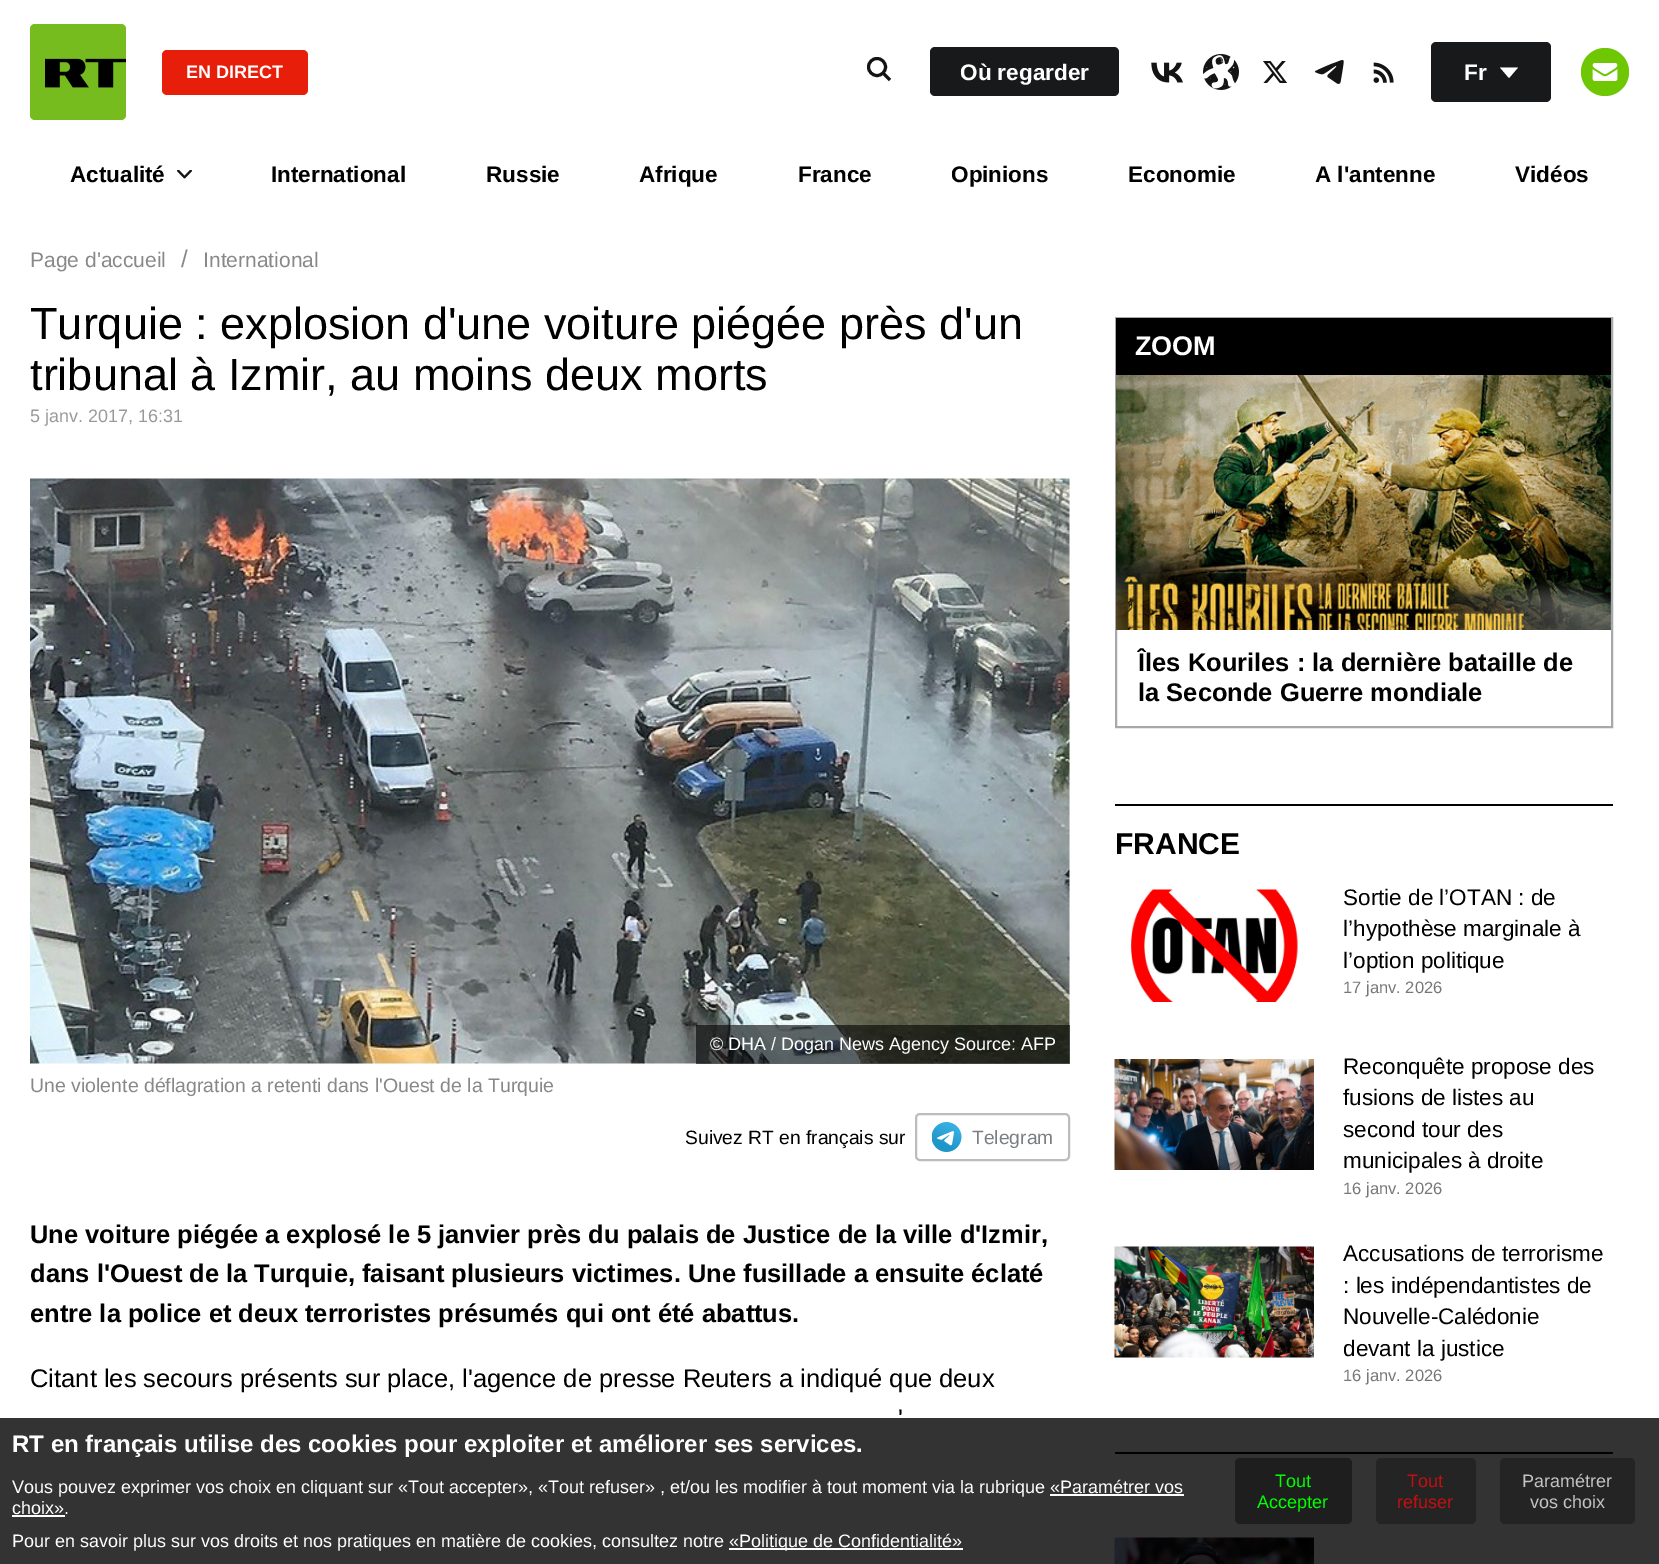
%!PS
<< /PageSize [1659 1564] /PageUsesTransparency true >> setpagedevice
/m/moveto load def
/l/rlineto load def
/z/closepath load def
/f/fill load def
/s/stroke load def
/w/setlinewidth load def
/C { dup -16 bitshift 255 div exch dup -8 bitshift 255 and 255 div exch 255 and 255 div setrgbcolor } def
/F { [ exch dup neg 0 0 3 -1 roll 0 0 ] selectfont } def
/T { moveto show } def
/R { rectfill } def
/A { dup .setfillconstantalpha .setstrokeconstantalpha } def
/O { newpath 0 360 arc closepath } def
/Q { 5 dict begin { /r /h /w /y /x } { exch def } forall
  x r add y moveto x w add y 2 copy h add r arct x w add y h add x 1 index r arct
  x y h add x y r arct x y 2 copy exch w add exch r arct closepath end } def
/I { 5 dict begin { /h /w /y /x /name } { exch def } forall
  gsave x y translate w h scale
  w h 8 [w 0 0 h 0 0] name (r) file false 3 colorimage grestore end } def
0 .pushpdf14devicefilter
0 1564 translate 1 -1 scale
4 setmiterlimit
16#FFFFFF C
0 0 1659 1564 R
(1.rgb) 30 24 96 96 I
16#E61E0A C
162 50 146 45 5 Q f
/LiberationSans-Bold 18 F
16#FFFFFF C
(EN DIRECT) 186 78 T
16#141414 C
3 w
877 67 8.5 O s
883.5 73.5 m 6.5 6.5 l s
16#18191A C
930 47 189 49 5 Q f
/LiberationSans-Bold 22.5 F
16#FFFFFF C
(Où regarder) 960 80 T
(2.rgb) 1151 62 32 21 I
(3.rgb) 1203 54 36 36 I
(4.rgb) 1263 61 25 22 I
(5.rgb) 1314 60 30 24 I
(6.rgb) 1373 62 21 21 I
16#18191A C
1431 42 120 60 5 Q f
16#FFFFFF C
(Fr) 1464 80 T
1500 67.5 m 18 0 l -9 10.5 l z f
16#6EC702 C
1605 72 24 O f
(7.rgb) 1592 63 26 18 I
16#000000 C
(Actualité) 70 182 T
(8.rgb) 177 170 15 9 I
(International) 271 182 T
(Russie) 486 182 T
(Afrique) 639 182 T
(France) 798 182 T
(Opinions) 951 182 T
(Economie) 1128 182 T
(A l'antenne) 1315 182 T
(Vidéos) 1515 182 T
/LiberationSans-Regular 21 F
16#888888 C
(Page d'accueil) 30 267 T
/LiberationSans-Regular 24 F
(/) 181 267 T
/LiberationSans-Regular 21 F
(International) 203 267 T
/LiberationSans-Regular 45 F
16#000000 C
(Turquie : explosion d'une voiture piégée près d'un) 30 339 T
(tribunal à Izmir, au moins deux morts) 30 390 T
/LiberationSans-Regular 18 F
16#999999 C
(5 janv. 2017, 16:31) 30 422 T
(9.rgb) 30 478 1040 586 I
0.6 A
16#000000 C
696 1025 374 39 R
1 A
16#FFFFFF C
(© DHA / Dogan News Agency Source: AFP) 710 1050 T
/LiberationSans-Regular 19.5 F
16#888888 C
(Une violente déflagration a retenti dans l'Ouest de la Turquie) 30 1092 T
/LiberationSans-Regular 19.25 F
16#000000 C
(Suivez RT en français sur) 685 1144 T
16#BCBCBC C
2 w
916 1114 153 46 4 Q s
(10.rgb) 932 1122 30 30 I
16#7B7F83 C
(Telegram) 972 1144 T
/LiberationSans-Bold 25.5 F
16#000000 C
(Une voiture piégée a explosé le 5 janvier près du palais de Justice de la ville d'Izmir,) 30 1243 T
(dans l'Ouest de la Turquie, faisant plusieurs victimes. Une fusillade a ensuite éclaté) 30 1282 T
(entre la police et deux terroristes présumés qui ont été abattus.) 30 1322 T
/LiberationSans-Regular 25.5 F
(Citant les secours présents sur place, l'agence de presse Reuters a indiqué que deux) 30 1387 T
(') 898 1427 T
16#A6A8AB C
1116 318 496 409 rectstroke
16#000000 C
1116 318 495 57 R
/LiberationSans-Bold 27 F
16#FFFFFF C
(ZOOM) 1135 355 T
(11.rgb) 1116 375 495 255 I
/LiberationSans-Bold 25.5 F
16#000000 C
(Îles Kouriles : la dernière bataille de) 1138 671 T
(la Seconde Guerre mondiale) 1138 701 T
1115 804 498 2 R
/LiberationSans-Bold 30 F
(FRANCE) 1115 854 T
(12.rgb) 1130 889 168 113 I
/LiberationSans-Regular 22.5 F
(Sortie de l’OTAN : de) 1343 905 T
(l’hypothèse marginale à) 1343 936 T
(l’option politique) 1343 968 T
/LiberationSans-Regular 16.5 F
16#777777 C
(17 janv. 2026) 1343 993 T
(13.rgb) 1114 1059 200 111 I
/LiberationSans-Regular 22.5 F
16#000000 C
(Reconquête propose des) 1343 1074 T
(fusions de listes au) 1343 1105 T
(second tour des) 1343 1137 T
(municipales à droite) 1343 1168 T
/LiberationSans-Regular 16.5 F
16#777777 C
(16 janv. 2026) 1343 1194 T
(14.rgb) 1114 1246 200 112 I
/LiberationSans-Regular 22.5 F
16#000000 C
(Accusations de terrorisme) 1343 1261 T
(: les indépendantistes de) 1343 1293 T
(Nouvelle-Calédonie) 1343 1324 T
(devant la justice) 1343 1356 T
/LiberationSans-Regular 16.5 F
16#777777 C
(16 janv. 2026) 1343 1381 T
16#000000 C
1115 1452 498 2 R
(15.rgb) 1114 1537 200 27 I
0.8 A
0 1418 1659 146 R
/LiberationSans-Bold 24 F
1 A
16#FFFFFF C
(RT en français utilise des cookies pour exploiter et améliorer ses services.) 12 1452 T
/LiberationSans-Regular 18 F
(Vous pouvez exprimer vos choix en cliquant sur «Tout accepter», «Tout refuser» , et/ou les modifier à tout moment via la rubrique «Paramétrer vos) 12 1493 T
(choix».) 12 1514 T
1050 1494 134 2 R
12 1515 53 2 R
(Pour en savoir plus sur vos droits et nos pratiques en matière de cookies, consultez notre) 12 1547 T
729 1548 234 2 R
(«Politique de Confidentialité») 729 1547 T
16#1E1E1E C
1235 1458 117 66 5 Q f
16#00FF00 C
(Tout) 1275 1487 T
(Accepter) 1257 1508 T
16#242424 C
1376 1458 100 66 5 Q f
16#C20F0F C
(Tout) 1407 1487 T
(refuser) 1397 1508 T
16#242424 C
1500 1458 135 66 5 Q f
16#C2C2C2 C
(Paramétrer) 1522 1487 T
(vos choix) 1530 1508 T
.poppdf14devicefilter showpage
